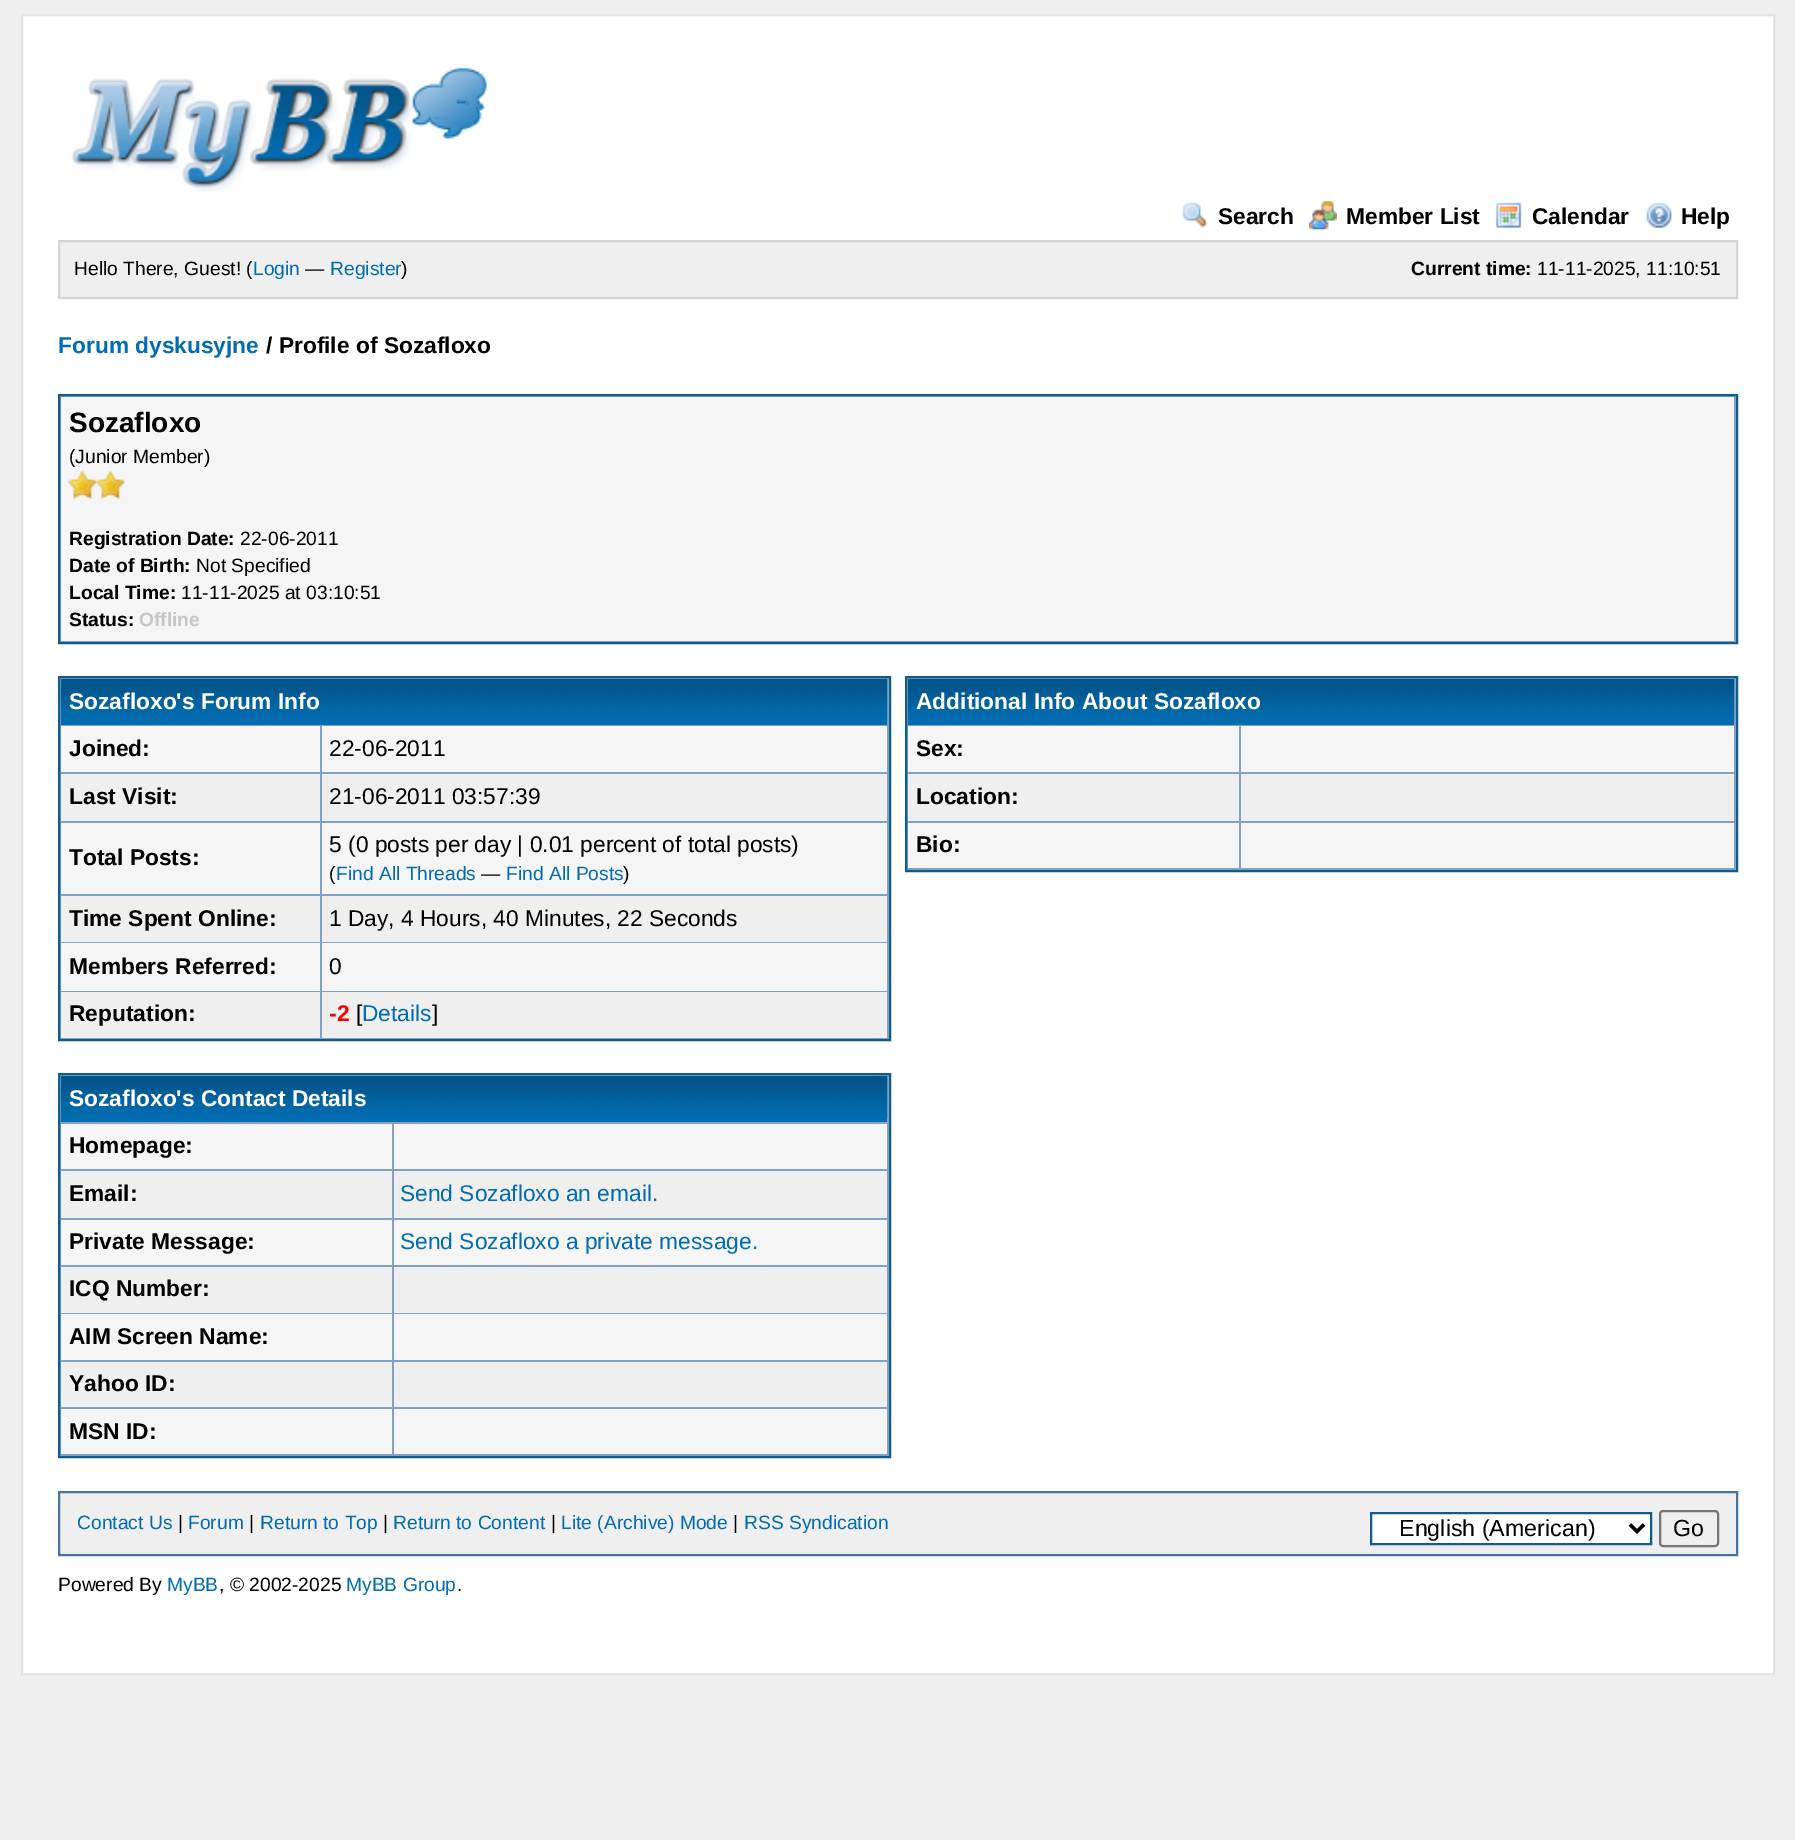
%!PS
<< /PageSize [1795 1840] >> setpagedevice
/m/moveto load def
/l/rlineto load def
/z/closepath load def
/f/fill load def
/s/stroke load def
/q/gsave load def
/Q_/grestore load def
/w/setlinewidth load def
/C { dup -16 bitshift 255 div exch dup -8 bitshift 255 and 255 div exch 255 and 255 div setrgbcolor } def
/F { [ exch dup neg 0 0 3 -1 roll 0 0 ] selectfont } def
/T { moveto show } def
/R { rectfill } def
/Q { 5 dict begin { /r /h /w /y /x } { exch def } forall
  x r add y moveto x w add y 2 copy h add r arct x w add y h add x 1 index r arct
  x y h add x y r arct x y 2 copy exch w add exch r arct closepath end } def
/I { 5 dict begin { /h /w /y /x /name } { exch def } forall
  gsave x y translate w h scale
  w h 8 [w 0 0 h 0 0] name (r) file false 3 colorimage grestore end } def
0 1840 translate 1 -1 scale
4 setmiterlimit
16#EFEFEF C
0 0 1795 1840 R
16#FFFFFF C
22 15 m 1752 0 l 0 1659 l -1752 0 l z q f Q_
16#E4E4E4 C
2 w
s
(1.rgb) 71 67 416 125 I
(2.rgb) 1182 202 25 26 I
/LiberationSans-Bold 22.75 F
16#000000 C
(Search) 1218 224 T
(3.rgb) 1309 201 28 29 I
(Member List) 1346 224 T
(4.rgb) 1495 202 27 26 I
(Calendar) 1532 224 T
(5.rgb) 1646 202 26 26 I
(Help) 1681 224 T
16#EFEFEF C
59 241 m 1678 0 l 0 57 l -1678 0 l z q f Q_
16#D4D4D4 C
s
/LiberationSans-Regular 19.25 F
16#000000 C
(Hello There, Guest! \() 74 275 T
16#026CB1 C
(Login) 253 275 T
16#000000 C
(—) 305 275 T
16#026CB1 C
(Register) 330 275 T
16#000000 C
(\)) 401 275 T
/LiberationSans-Bold 19.25 F
(Current time:) 1411 275 T
/LiberationSans-Regular 19.25 F
(11-11-2025, 11:10:51) 1537 275 T
/LiberationSans-Bold 22.75 F
16#026CB1 C
(Forum dyskusyjne) 58 353 T
16#000000 C
(/ Profile of Sozafloxo) 266 353 T
16#81A2C4 C
59 395 m 1678 0 l 0 248 l -1678 0 l z q f Q_
16#0F5C8E C
s
16#F5F5F5 C
61 397 1673 244 R
/LiberationSans-Bold 28 F
16#000000 C
(Sozafloxo) 69 432 T
/LiberationSans-Regular 19.25 F
(\(Junior Member\)) 69 463 T
(6.rgb) 68 470 29 29 I
(7.rgb) 96 470 29 29 I
/LiberationSans-Bold 19.25 F
(Registration Date:) 69 545 T
/LiberationSans-Regular 19.25 F
(22-06-2011) 240 545 T
/LiberationSans-Bold 19.25 F
(Date of Birth:) 69 572 T
/LiberationSans-Regular 19.25 F
(Not Specified) 196 572 T
/LiberationSans-Bold 19.25 F
(Local Time:) 69 599 T
/LiberationSans-Regular 19.25 F
(11-11-2025 at 03:10:51) 181 599 T
/LiberationSans-Bold 19.25 F
(Status:) 69 626 T
16#C7C7C7 C
(Offline) 139 626 T
16#81A2C4 C
59 677 m 831 0 l 0 363 l -831 0 l z q f Q_
16#0F5C8E C
s
16#026CB1 C
61 679 826 46 R
(8.rgb) 61 679 827 42 I
/LiberationSans-Bold 22.75 F
16#FFFFFF C
(Sozafloxo's Forum Info) 69 709 T
16#F5F5F5 C
61 726 259 46 R
16#000000 C
(Joined:) 69 756 T
16#F5F5F5 C
322 726 565 46 R
/LiberationSans-Regular 22.75 F
16#000000 C
(22-06-2011) 329 756 T
16#EFEFEF C
61 774 259 47 R
/LiberationSans-Bold 22.75 F
16#000000 C
(Last Visit:) 69 804 T
16#EFEFEF C
322 774 565 47 R
/LiberationSans-Regular 22.75 F
16#000000 C
(21-06-2011 03:57:39) 329 804 T
16#F5F5F5 C
61 823 259 71 R
/LiberationSans-Bold 22.75 F
16#000000 C
(Total Posts:) 69 865 T
16#F5F5F5 C
322 823 565 71 R
/LiberationSans-Regular 22.75 F
16#000000 C
(5 \(0 posts per day | 0.01 percent of total posts\)) 329 852 T
/LiberationSans-Regular 19.25 F
(\() 329 880 T
16#026CB1 C
(Find All Threads) 336 880 T
16#000000 C
(—) 481 880 T
16#026CB1 C
(Find All Posts) 506 880 T
16#000000 C
(\)) 623 880 T
16#EFEFEF C
61 896 259 46 R
/LiberationSans-Bold 22.75 F
16#000000 C
(Time Spent Online:) 69 926 T
16#EFEFEF C
322 896 565 46 R
/LiberationSans-Regular 22.75 F
16#000000 C
(1 Day, 4 Hours, 40 Minutes, 22 Seconds) 329 926 T
16#F5F5F5 C
61 943 259 48 R
/LiberationSans-Bold 22.75 F
16#000000 C
(Members Referred:) 69 974 T
16#F5F5F5 C
322 943 565 48 R
/LiberationSans-Regular 22.75 F
16#000000 C
(0) 329 974 T
16#EFEFEF C
61 992 259 46 R
/LiberationSans-Bold 22.75 F
16#000000 C
(Reputation:) 69 1021 T
16#EFEFEF C
322 992 565 46 R
16#FF0000 C
(-2) 329 1021 T
/LiberationSans-Regular 22.75 F
16#000000 C
([) 356 1021 T
16#026CB1 C
(Details) 362 1021 T
16#000000 C
(]) 432 1021 T
16#81A2C4 C
59 1074 m 831 0 l 0 383 l -831 0 l z q f Q_
16#0F5C8E C
s
16#026CB1 C
61 1076 826 46 R
(9.rgb) 61 1076 827 43 I
/LiberationSans-Bold 22.75 F
16#FFFFFF C
(Sozafloxo's Contact Details) 69 1106 T
16#F5F5F5 C
61 1124 331 45 R
16#000000 C
(Homepage:) 69 1153 T
16#F5F5F5 C
394 1124 493 45 R
16#EFEFEF C
61 1171 331 47 R
16#000000 C
(Email:) 69 1201 T
16#EFEFEF C
394 1171 493 47 R
/LiberationSans-Regular 22.75 F
16#026CB1 C
(Send Sozafloxo an email.) 400 1201 T
16#F5F5F5 C
61 1220 331 45 R
/LiberationSans-Bold 22.75 F
16#000000 C
(Private Message:) 69 1249 T
16#F5F5F5 C
394 1220 493 45 R
/LiberationSans-Regular 22.75 F
16#026CB1 C
(Send Sozafloxo a private message.) 400 1249 T
16#EFEFEF C
61 1267 331 46 R
/LiberationSans-Bold 22.75 F
16#000000 C
(ICQ Number:) 69 1296 T
16#EFEFEF C
394 1267 493 46 R
16#F5F5F5 C
61 1314 331 46 R
16#000000 C
(AIM Screen Name:) 69 1344 T
16#F5F5F5 C
394 1314 493 46 R
16#EFEFEF C
61 1362 331 45 R
16#000000 C
(Yahoo ID:) 69 1391 T
16#EFEFEF C
394 1362 493 45 R
16#F5F5F5 C
61 1409 331 45 R
16#000000 C
(MSN ID:) 69 1439 T
16#F5F5F5 C
394 1409 493 45 R
16#81A2C4 C
906 677 m 831 0 l 0 194 l -831 0 l z q f Q_
16#0F5C8E C
s
16#026CB1 C
908 679 826 46 R
(10.rgb) 908 679 827 42 I
16#FFFFFF C
(Additional Info About Sozafloxo) 916 709 T
16#F5F5F5 C
908 726 331 46 R
16#000000 C
(Sex:) 916 756 T
16#F5F5F5 C
1241 726 493 46 R
16#EFEFEF C
908 774 331 47 R
16#000000 C
(Location:) 916 804 T
16#EFEFEF C
1241 774 493 47 R
16#F5F5F5 C
908 823 331 45 R
16#000000 C
(Bio:) 916 852 T
16#F5F5F5 C
1241 823 493 45 R
16#EFEFEF C
59 1492 m 1678 0 l 0 63 l -1678 0 l z q f Q_
16#4874A3 C
s
/LiberationSans-Regular 19.25 F
16#026CB1 C
(Contact Us) 77 1529 T
16#000000 C
(|) 178 1529 T
16#026CB1 C
(Forum) 188 1529 T
16#000000 C
(|) 249 1529 T
16#026CB1 C
(Return to Top) 260 1529 T
16#000000 C
(|) 383 1529 T
16#026CB1 C
(Return to Content) 393 1529 T
16#000000 C
(|) 551 1529 T
16#026CB1 C
(Lite \(Archive\) Mode) 561 1529 T
16#000000 C
(|) 733 1529 T
16#026CB1 C
(RSS Syndication) 744 1529 T
16#FFFFFF C
1371 1513 m 280 0 l 0 31 l -280 0 l z q f Q_
16#0F5C8E C
s
16#000000 C
3.5 w
1630 1524.5 m 7 7 l 7 -7 l s
/LiberationSans-Regular 23.25 F
(English \(American\)) 1399 1536 T
16#767676 C
2 w
1660 1511 58 35 3 Q s
16#000000 C
(Go) 1673 1536 T
/LiberationSans-Regular 19.25 F
(Powered By) 58 1591 T
16#026CB1 C
(MyBB) 167 1591 T
16#000000 C
(, © 2002-2025) 219 1591 T
16#026CB1 C
(MyBB Group) 346 1591 T
16#000000 C
(.) 457 1591 T
showpage
